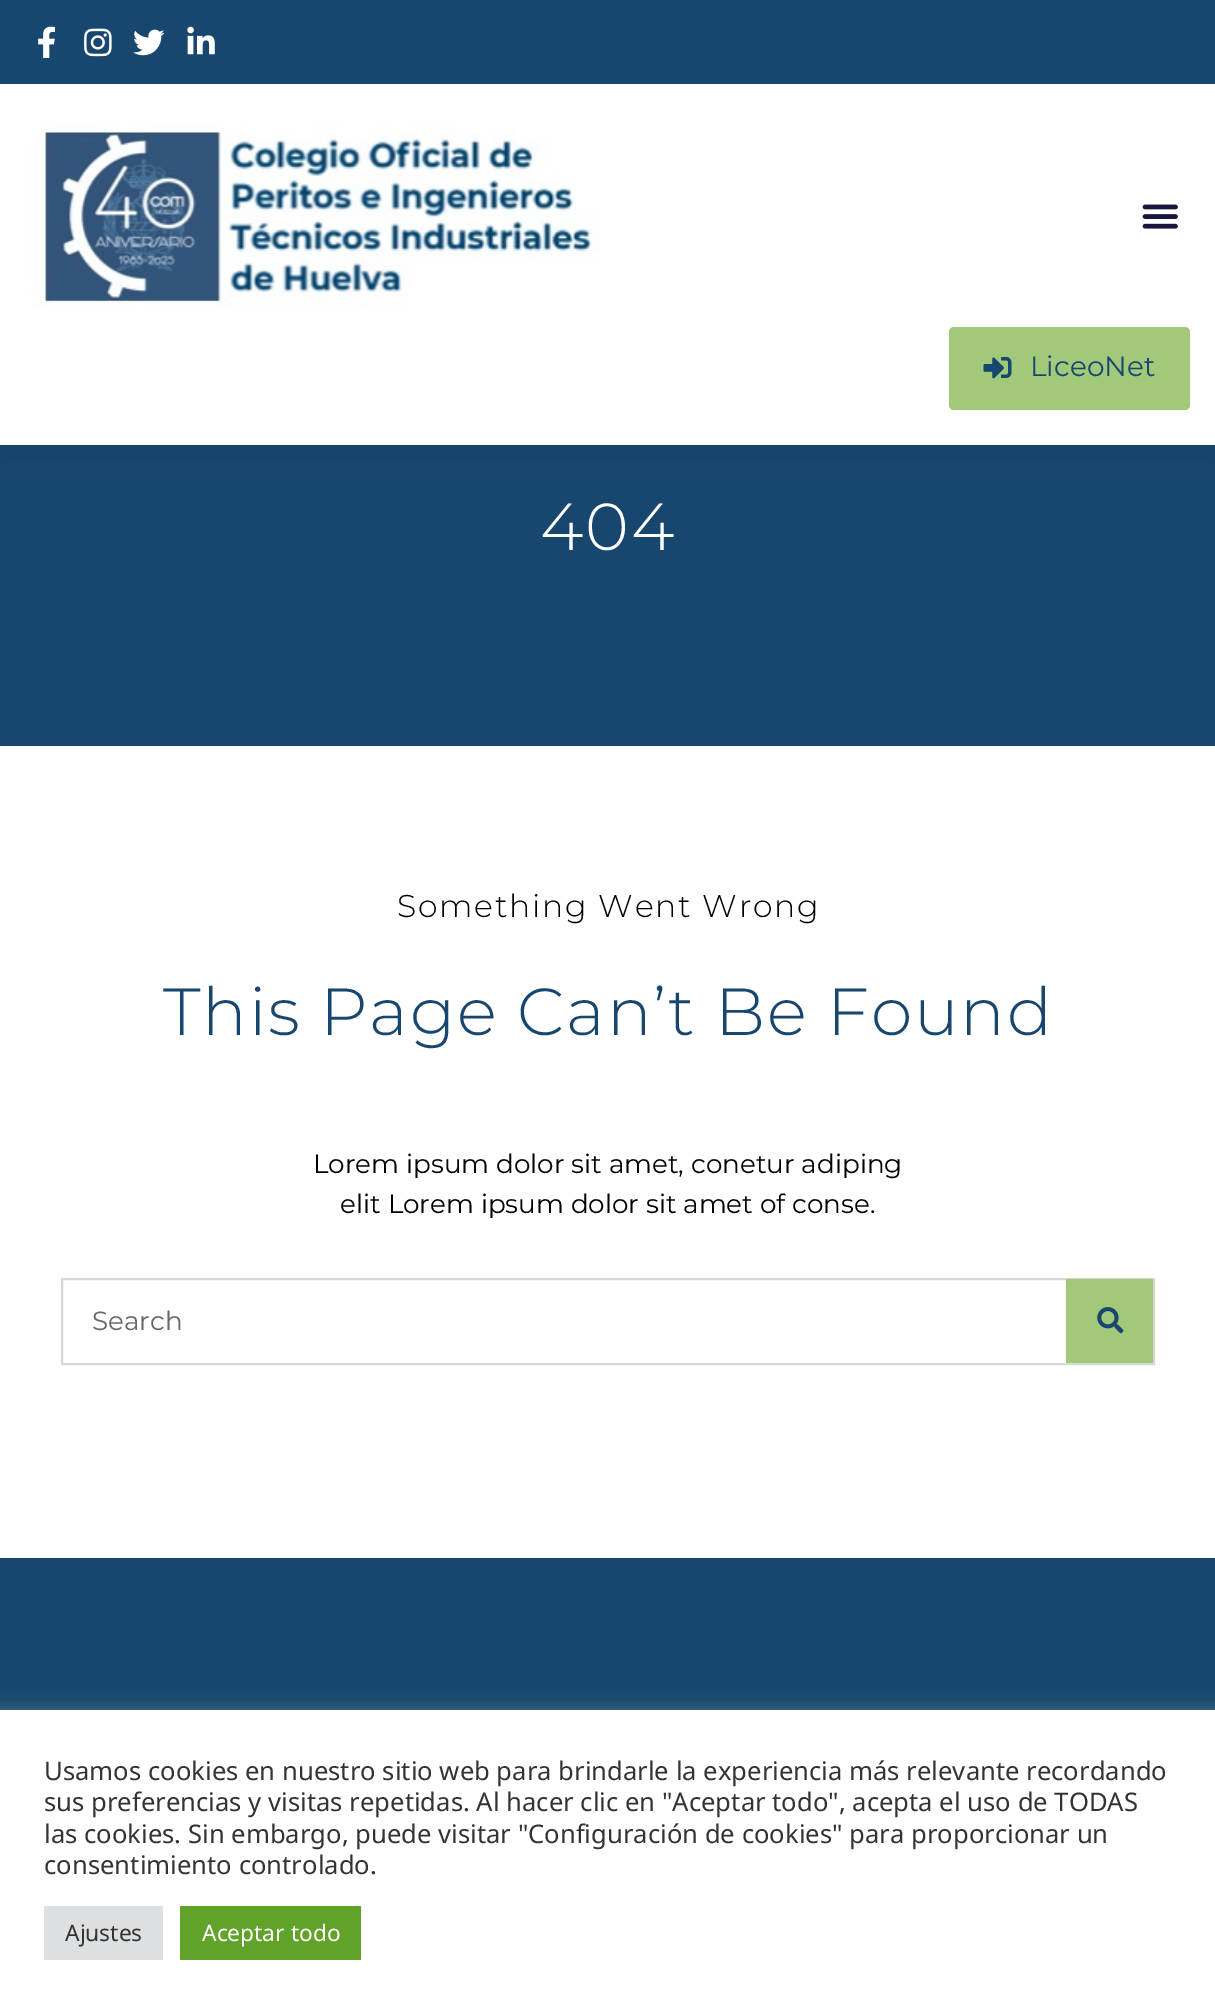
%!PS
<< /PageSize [1215 2012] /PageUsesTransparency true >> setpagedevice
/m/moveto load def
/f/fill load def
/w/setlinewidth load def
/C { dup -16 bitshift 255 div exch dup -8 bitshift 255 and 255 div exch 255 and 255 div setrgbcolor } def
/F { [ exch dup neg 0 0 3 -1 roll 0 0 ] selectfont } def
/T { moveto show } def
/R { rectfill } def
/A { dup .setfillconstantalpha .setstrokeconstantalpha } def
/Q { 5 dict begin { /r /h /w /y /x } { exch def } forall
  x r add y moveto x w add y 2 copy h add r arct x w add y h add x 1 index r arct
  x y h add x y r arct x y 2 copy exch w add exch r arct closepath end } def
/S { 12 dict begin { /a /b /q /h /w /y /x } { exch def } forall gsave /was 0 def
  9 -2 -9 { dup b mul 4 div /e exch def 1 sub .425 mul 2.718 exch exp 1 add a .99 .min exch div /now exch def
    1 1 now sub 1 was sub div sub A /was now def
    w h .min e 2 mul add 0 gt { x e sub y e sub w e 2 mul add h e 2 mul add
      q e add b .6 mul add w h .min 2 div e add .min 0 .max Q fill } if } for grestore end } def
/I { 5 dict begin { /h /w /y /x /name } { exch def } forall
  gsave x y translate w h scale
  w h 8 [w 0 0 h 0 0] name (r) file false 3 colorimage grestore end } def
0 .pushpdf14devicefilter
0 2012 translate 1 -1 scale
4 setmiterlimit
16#FFFFFF C
0 0 1215 2012 R
16#17476F C
0 445 1215 301 R
16#000000 C
0 9 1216 444 0 26 .1 S
16#17476F C
0 0 1215 84 R
(1.rgb) 38 26 18 32 I
(2.rgb) 84 28 28 29 I
(3.rgb) 133 29 32 27 I
(4.rgb) 187 26 28 29 I
16#FFFFFF C
0 84 1215 361 R
(5.rgb) 30 119 570 191 I
(6.rgb) 1142 204 36 25 I
16#A2C879 C
949 327 241 83 5 Q f
(7.rgb) 983 357 29 22 I
/Montserrat-Regular 28 F
16#17476F C
(LiceoNet) 1030 376 T
/Montserrat-Light 66.5 F
16#FFFFFF C
540 550 m 1.75 0 (404) ashow
/Montserrat-Light 31.5 F
16#000000 C
397 917 m 1.75 0 (Something Went Wrong) ashow
/Montserrat-Light 66.5 F
16#17476F C
163 1035 m 1.75 0 (This Page Can’t Be Found) ashow
/Montserrat-Regular 26.25 F
16#000000 C
(Lorem ipsum dolor sit amet, conetur adiping) 313 1173 T
(elit Lorem ipsum dolor sit amet of conse.) 340 1213 T
16#D7D7D7 C
2 w
62 1279 1092 85 rectstroke
16#666666 C
(Search) 92 1330 T
16#A2C879 C
1066 1279 87 84 R
(8.rgb) 1097 1307 27 27 I
16#17476F C
0 1558 1215 152 R
16#ACABAB C
0 1708 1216 303 0 9 .3 S
16#FFFFFF C
0 1710 1215 302 R
/NotoSans-Regular 25.65 F
16#333333 C
(Usamos cookies en nuestro sitio web para brindarle la experiencia más relevante recordando) 44 1780 T
(sus preferencias y visitas repetidas. Al hacer clic en "Aceptar todo", acepta el uso de TODAS) 44 1811 T
(las cookies. Sin embargo, puede visitar "Configuración de cookies" para proporcionar un) 44 1843 T
(consentimiento controlado.) 44 1874 T
16#DEDFE0 C
44 1906 119 54 R
/NotoSans-Regular 22.75 F
16#333333 C
(Ajustes) 65 1941 T
16#61A229 C
180 1906 181 54 R
16#FFFFFF C
(Aceptar todo) 202 1941 T
.poppdf14devicefilter showpage
